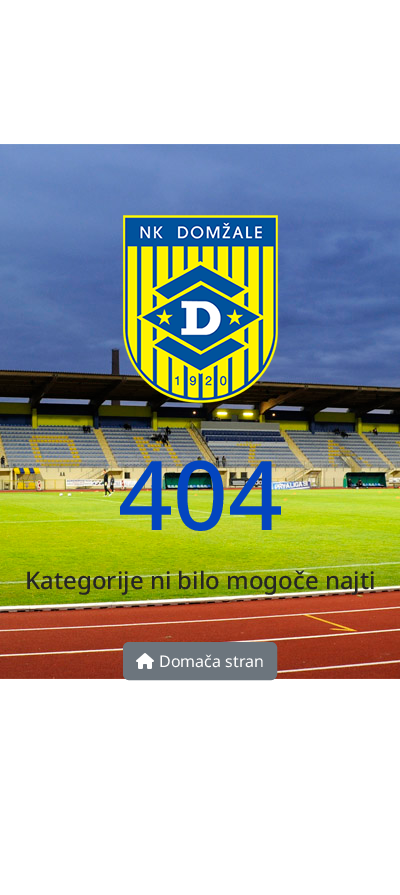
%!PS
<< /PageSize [400 895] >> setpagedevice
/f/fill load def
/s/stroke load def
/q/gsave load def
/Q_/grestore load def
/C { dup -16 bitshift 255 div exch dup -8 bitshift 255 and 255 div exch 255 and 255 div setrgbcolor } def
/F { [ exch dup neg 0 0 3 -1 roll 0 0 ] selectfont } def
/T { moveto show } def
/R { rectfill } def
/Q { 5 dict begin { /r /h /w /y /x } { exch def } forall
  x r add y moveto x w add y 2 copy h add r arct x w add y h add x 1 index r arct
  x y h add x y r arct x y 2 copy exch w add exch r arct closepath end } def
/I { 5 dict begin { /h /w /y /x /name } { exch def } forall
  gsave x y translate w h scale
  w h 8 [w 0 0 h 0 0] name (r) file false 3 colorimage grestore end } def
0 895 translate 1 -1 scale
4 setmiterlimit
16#FFFFFF C
0 0 400 895 R
(1.rgb) 0 144 400 535 I
(2.rgb) 123 215 155 188 I
/NotoSans-Medium 96 F
16#0345BF C
(404) 118 530 T
/NotoSans-Medium 24 F
16#252525 C
(Kategorije ni bilo mogoče najti) 25 589 T
16#6C757D C
123.5 642.5 153 37 5.5 Q q f Q_
s
(3.rgb) 136 653 18 16 I
/NotoSans-Regular 16 F
16#FFFFFF C
(Domača stran) 159 667 T
showpage
